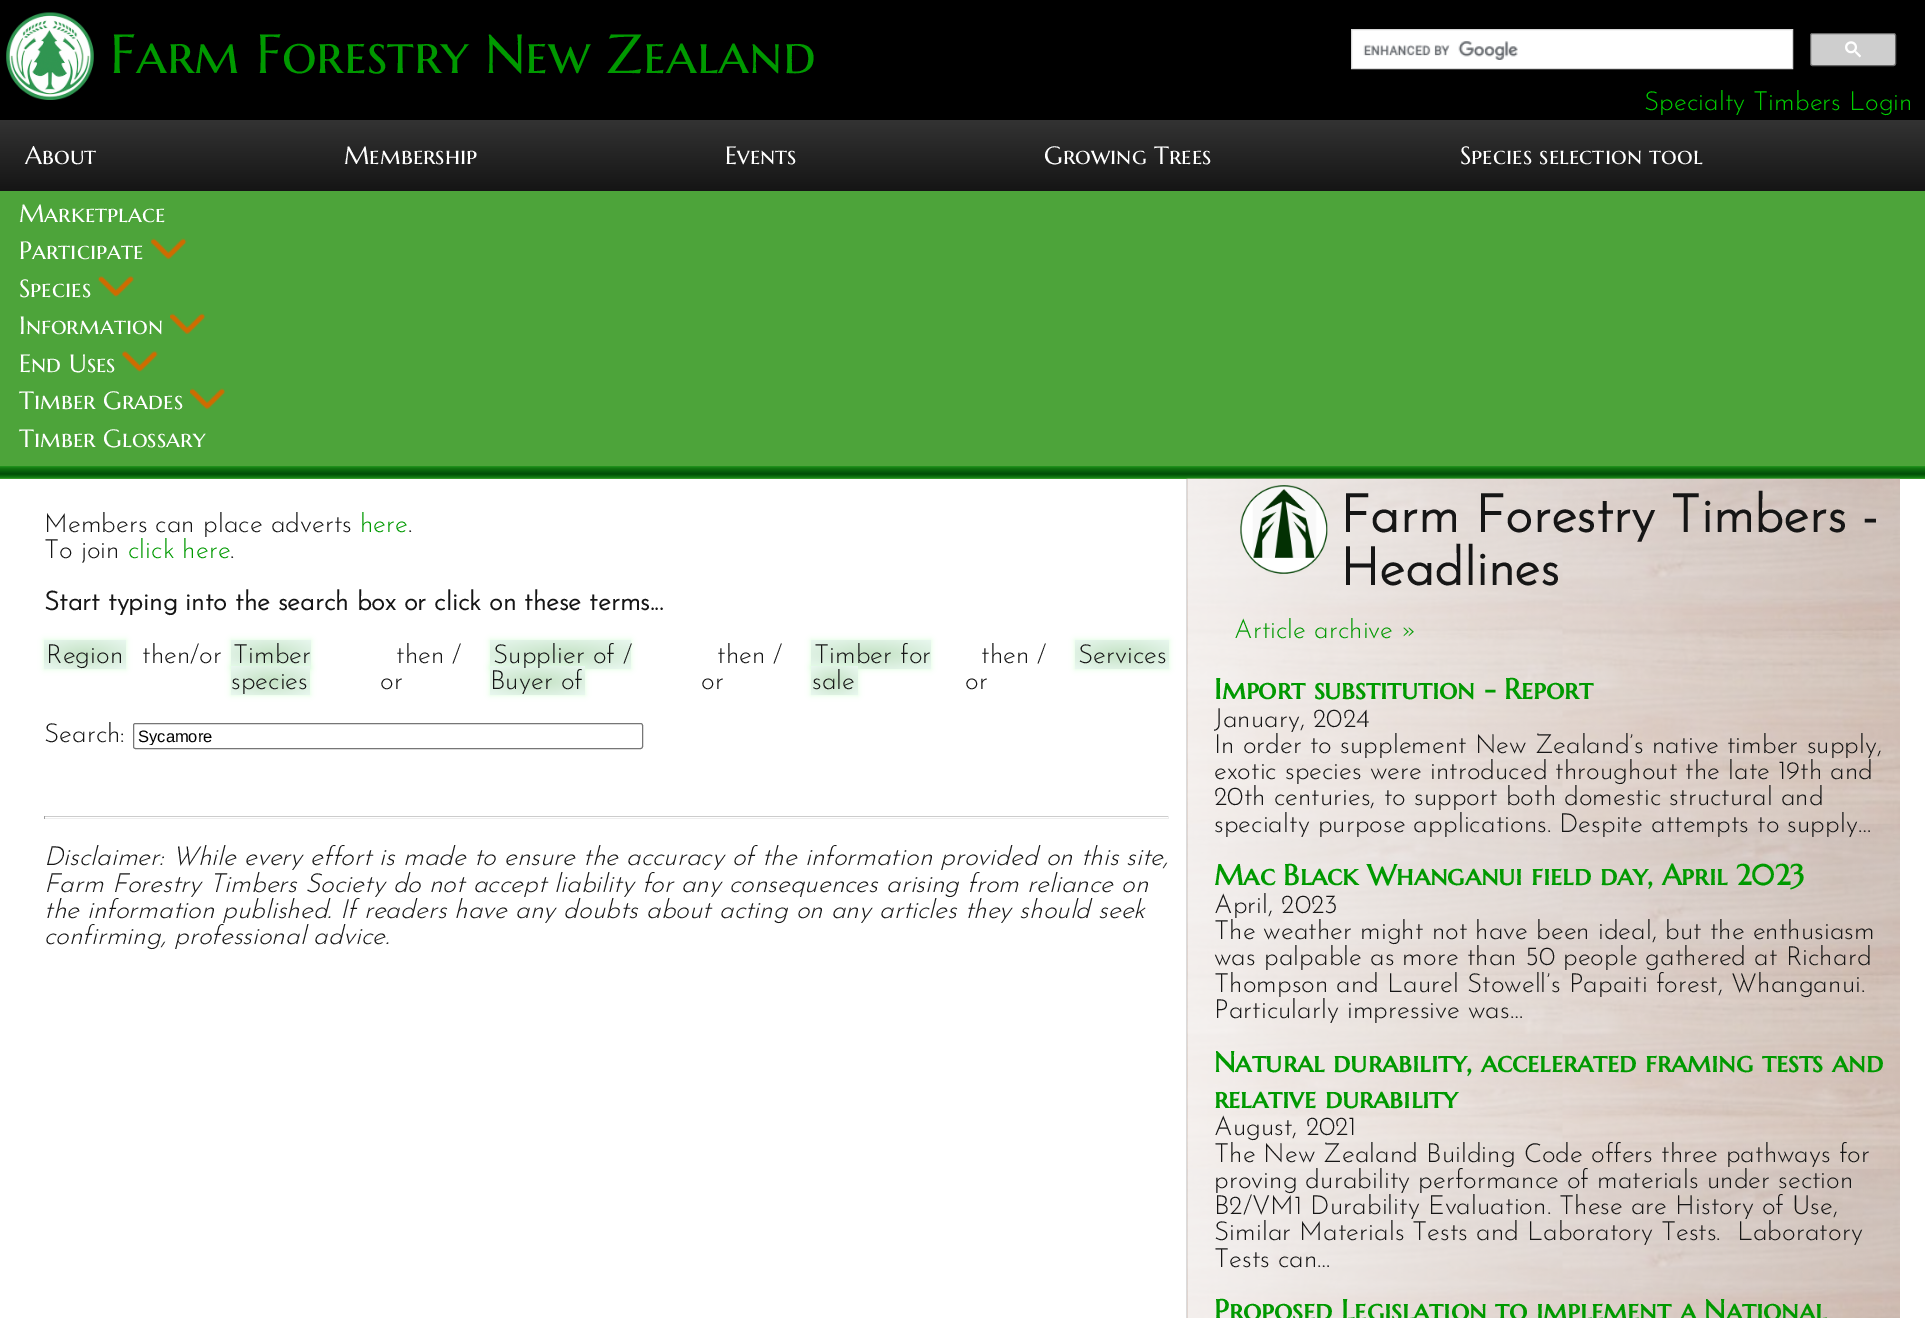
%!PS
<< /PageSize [1925 1318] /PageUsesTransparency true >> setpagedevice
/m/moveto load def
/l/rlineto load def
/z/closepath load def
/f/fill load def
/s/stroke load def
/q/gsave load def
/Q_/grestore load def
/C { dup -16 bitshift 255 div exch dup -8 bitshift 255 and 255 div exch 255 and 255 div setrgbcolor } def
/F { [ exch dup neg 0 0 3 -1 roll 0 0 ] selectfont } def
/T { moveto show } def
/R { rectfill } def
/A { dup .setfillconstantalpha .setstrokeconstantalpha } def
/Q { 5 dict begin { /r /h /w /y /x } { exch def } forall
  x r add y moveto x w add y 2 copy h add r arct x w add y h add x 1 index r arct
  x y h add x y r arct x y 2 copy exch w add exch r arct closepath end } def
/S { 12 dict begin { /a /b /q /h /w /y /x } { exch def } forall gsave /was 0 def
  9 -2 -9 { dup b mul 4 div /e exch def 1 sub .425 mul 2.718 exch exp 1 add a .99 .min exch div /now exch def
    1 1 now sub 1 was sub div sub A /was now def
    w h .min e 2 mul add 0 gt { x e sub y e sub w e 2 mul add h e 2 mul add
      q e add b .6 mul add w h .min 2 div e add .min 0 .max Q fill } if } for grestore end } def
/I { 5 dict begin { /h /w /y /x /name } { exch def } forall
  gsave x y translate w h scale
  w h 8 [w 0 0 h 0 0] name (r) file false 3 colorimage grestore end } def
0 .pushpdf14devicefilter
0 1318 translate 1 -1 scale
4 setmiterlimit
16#FFFFFF C
0 0 1925 1318 R
16#000000 C
0 0 1925 120 R
(1.rgb) 6 12 88 88 I
/MarcellusSC-Regular 55 F
16#009900 C
(Farm Forestry New Zealand) 110 73 T
16#FFFFFF C
1351.5 29.5 m 441 0 l 0 39 l -441 0 l z q f Q_
16#D9D9D9 C
s
(2.rgb) 1363 41 155 19 I
16#CECECE C
1810.5 33.5 85 32 2 Q q f Q_
16#666666 C
s
(3.rgb) 1845 41 16 17 I
/JosefinSans-Thin 26.25 F
16#00CC00 C
(Specialty Timbers Login) 1644 110 T
q 0 120 m 1925 0 l 0 71 l -1925 0 l z clip newpath
<< /ShadingType 2 /ColorSpace /DeviceRGB /Coords [963 120 963 193] /Extend [true true] /Function << /FunctionType 2 /Domain [0 1] /C0 [.2 .2 .2] /C1 [.078 .078 .078] /N 1 >> >> shfill Q_
/MarcellusSC-Regular 25 F
16#FFFFFF C
(About) 25 164 T
(Membership) 344 164 T
(Events) 725 164 T
(Growing Trees) 1044 164 T
(Species selection tool) 1460 164 T
16#4DA43A C
0 191 1925 275 R
16#FFFFFF C
(Marketplace) 19 222 T
(Participate) 19 259 T
(4.rgb) 151 238 36 21 I
(Species) 19 297 T
(5.rgb) 98 276 36 21 I
(Information) 19 334 T
(6.rgb) 170 313 35 21 I
(End Uses) 19 372 T
(7.rgb) 122 351 36 21 I
(Timber Grades) 19 409 T
(6.rgb) 190 388 35 21 I
(Timber Glossary) 19 447 T
q 0 466 m 1925 0 l 0 13 l -1925 0 l z clip newpath
<< /ShadingType 2 /ColorSpace /DeviceRGB /Coords [963 466 963 479] /Extend [true true] /Function << /FunctionType 3 /Domain [0 1] /Functions [<< /FunctionType 2 /Domain [0 1] /C0 [.153 .608 .133] /C1 [.125 .561 .106] /N 1 >> << /FunctionType 2 /Domain [0 1] /C0 [.125 .561 .106] /C1 [.082 .494 .078] /N 1 >> << /FunctionType 2 /Domain [0 1] /C0 [.082 .494 .078] /C1 [.063 .455 .063] /N 1 >> << /FunctionType 2 /Domain [0 1] /C0 [.063 .455 .063] /C1 [.024 .361 .047] /N 1 >> << /FunctionType 2 /Domain [0 1] /C0 [.024 .361 .047] /C1 [.008 .31 .031] /N 1 >> << /FunctionType 2 /Domain [0 1] /C0 [.008 .31 .031] /C1 [.008 .31 .031] /N 1 >> << /FunctionType 2 /Domain [0 1] /C0 [.008 .31 .031] /C1 [.024 .373 .039] /N 1 >> << /FunctionType 2 /Domain [0 1] /C0 [.024 .373 .039] /C1 [.078 .482 .082] /N 1 >> << /FunctionType 2 /Domain [0 1] /C0 [.078 .482 .082] /C1 [.129 .58 .11] /N 1 >> << /FunctionType 2 /Domain [0 1] /C0 [.129 .58 .11] /C1 [.22 .596 .173] /N 1 >>] /Bounds [.03 .14 .21 .45 .59 .62 .72 .86 .97] /Encode [0 1 0 1 0 1 0 1 0 1 0 1 0 1 0 1 0 1 0 1] >> >> shfill Q_
/JosefinSans-Thin 26.25 F
16#161616 C
(Members can place adverts) 44 532 T
16#009900 C
(here) 360 532 T
16#161616 C
(.) 408 532 T
(To join) 44 558 T
16#009900 C
(click here) 128 558 T
16#161616 C
(.) 230 558 T
/JosefinSans-Bold 26.25 F
(Start typing into the search box or click on these terms...) 44 610 T
16#DDFFDD C
44 640 82 29 0 3 1 S
q 44 640 m 82 0 l 0 29 l -82 0 l z clip newpath 85 654 translate 78 27 scale
<< /ShadingType 3 /ColorSpace /DeviceRGB /Coords [0 0 0 0 0 1] /Extend [true true] /Function << /FunctionType 2 /Domain [0 1] /C0 [.769 .886 .769] /C1 [.965 1 1] /N 1 >> >> shfill Q_
/JosefinSans-Thin 26.25 F
16#161616 C
(Region) 46 663 T
(then/or) 142 663 T
16#DDFFDD C
231 640 80 29 0 3 1 S
q 231 640 m 80 0 l 0 29 l -80 0 l z clip newpath 271 654 translate 76 27 scale
<< /ShadingType 3 /ColorSpace /DeviceRGB /Coords [0 0 0 0 0 1] /Extend [true true] /Function << /FunctionType 2 /Domain [0 1] /C0 [.769 .886 .769] /C1 [.965 1 1] /N 1 >> >> shfill Q_
231 666 79 29 0 3 1 S
16#161616 C
(Timber) 233 663 T
q 231 666 m 79 0 l 0 29 l -79 0 l z clip newpath 271 681 translate 75 27 scale
<< /ShadingType 3 /ColorSpace /DeviceRGB /Coords [0 0 0 0 0 1] /Extend [true true] /Function << /FunctionType 2 /Domain [0 1] /C0 [.769 .886 .769] /C1 [.965 1 1] /N 1 >> >> shfill Q_
(species) 231 689 T
(then /) 396 663 T
(or) 380 689 T
16#DDFFDD C
490 640 141 29 0 3 1 S
q 490 640 m 141 0 l 0 29 l -141 0 l z clip newpath 561 654 translate 134 27 scale
<< /ShadingType 3 /ColorSpace /DeviceRGB /Coords [0 0 0 0 0 1] /Extend [true true] /Function << /FunctionType 2 /Domain [0 1] /C0 [.769 .886 .769] /C1 [.965 1 1] /N 1 >> >> shfill Q_
490 666 95 29 0 3 1 S
q 490 666 m 95 0 l 0 29 l -95 0 l z clip newpath 538 681 translate 90 27 scale
<< /ShadingType 3 /ColorSpace /DeviceRGB /Coords [0 0 0 0 0 1] /Extend [true true] /Function << /FunctionType 2 /Domain [0 1] /C0 [.769 .886 .769] /C1 [.965 1 1] /N 1 >> >> shfill Q_
16#161616 C
(Supplier of /) 493 663 T
(Buyer of) 490 689 T
(then /) 717 663 T
(or) 701 689 T
16#DDFFDD C
811 640 120 29 0 3 1 S
q 811 640 m 120 0 l 0 29 l -120 0 l z clip newpath 871 654 translate 114 27 scale
<< /ShadingType 3 /ColorSpace /DeviceRGB /Coords [0 0 0 0 0 1] /Extend [true true] /Function << /FunctionType 2 /Domain [0 1] /C0 [.769 .886 .769] /C1 [.965 1 1] /N 1 >> >> shfill Q_
811 666 47 29 0 3 1 S
16#161616 C
(Timber for) 814 663 T
q 811 666 m 47 0 l 0 29 l -47 0 l z clip newpath 834 681 translate 44 27 scale
<< /ShadingType 3 /ColorSpace /DeviceRGB /Coords [0 0 0 0 0 1] /Extend [true true] /Function << /FunctionType 2 /Domain [0 1] /C0 [.769 .886 .769] /C1 [.965 1 1] /N 1 >> >> shfill Q_
(sale) 812 689 T
(then /) 981 663 T
(or) 965 689 T
16#DDFFDD C
1075 640 94 29 0 3 1 S
q 1075 640 m 94 0 l 0 29 l -94 0 l z clip newpath 1122 654 translate 89 27 scale
<< /ShadingType 3 /ColorSpace /DeviceRGB /Coords [0 0 0 0 0 1] /Extend [true true] /Function << /FunctionType 2 /Domain [0 1] /C0 [.769 .886 .769] /C1 [.965 1 1] /N 1 >> >> shfill Q_
16#161616 C
(Services) 1078 663 T
(Search:) 44 742 T
16#767676 C
133.5 723.5 509 25 2 Q s
q
138 726 500 19 rectclip
/LiberationSans-Regular 16.5 F
16#000000 C
(Sycamore) 138 742 T
Q_
16#CCCCCC C
44 816 1125 1 R
16#EEEEEE C
1168 816 1 3 R
44 818 1125 1 R
16#9F9F9F C
44 816 1 3 R
/JosefinSans-ThinItalic 26.25 F
16#161616 C
(Disclaimer: While every effort is made to ensure the accuracy of the information provided on this site,) 44 865 T
(Farm Forestry Timbers Society do not accept liability for any consequences arising from reliance on) 44 892 T
(the information published. If readers have any doubts about acting on any articles they should seek) 44 918 T
(confirming, professional advice.) 44 944 T
(8.rgb) 1186 478 714 840 I
16#DBDBDB C
1186 479 1 839 R
(9.rgb) 1240 485 88 89 I
/JosefinSans-Bold 52.5 F
16#161616 C
(Farm Forestry Timbers -) 1340 532 T
(Headlines) 1340 585 T
/JosefinSans-Thin 26.25 F
16#009900 C
(Article archive ») 1234 638 T
/MarcellusSC-Bold 28.9 F
(Import substitution - Report) 1214 699 T
/JosefinSans-Thin 26.25 F
16#161616 C
(January, 2024) 1214 727 T
(In order to supplement New Zealand’s native timber supply,) 1214 753 T
(exotic species were introduced throughout the late 19th and) 1214 779 T
(20th centuries, to support both domestic structural and) 1214 805 T
(specialty purpose applications. Despite attempts to supply…) 1214 832 T
/MarcellusSC-Bold 28.9 F
16#009900 C
(Mac Black Whanganui field day, April 2023) 1214 885 T
/JosefinSans-Thin 26.25 F
16#161616 C
(April, 2023) 1214 913 T
(The weather might not have been ideal, but the enthusiasm) 1214 939 T
(was palpable as more than 50 people gathered at Richard) 1214 965 T
(Thompson and Laurel Stowell’s Papaiti forest, Whanganui.) 1214 992 T
(Particularly impressive was…) 1214 1018 T
/MarcellusSC-Bold 28.9 F
16#009900 C
(Natural durability, accelerated framing tests and) 1214 1072 T
(relative durability) 1214 1108 T
/JosefinSans-Thin 26.25 F
16#161616 C
(August, 2021) 1214 1135 T
(The New Zealand Building Code offers three pathways for) 1214 1162 T
(proving durability performance of materials under section) 1214 1188 T
(B2/VM1 Durability Evaluation. These are History of Use,) 1214 1214 T
(Similar Materials Tests and Laboratory Tests.  Laboratory) 1214 1240 T
(Tests can…) 1214 1267 T
/MarcellusSC-Bold 28.9 F
16#009900 C
(Proposed Legislation to implement a National) 1214 1320 T
.poppdf14devicefilter showpage
